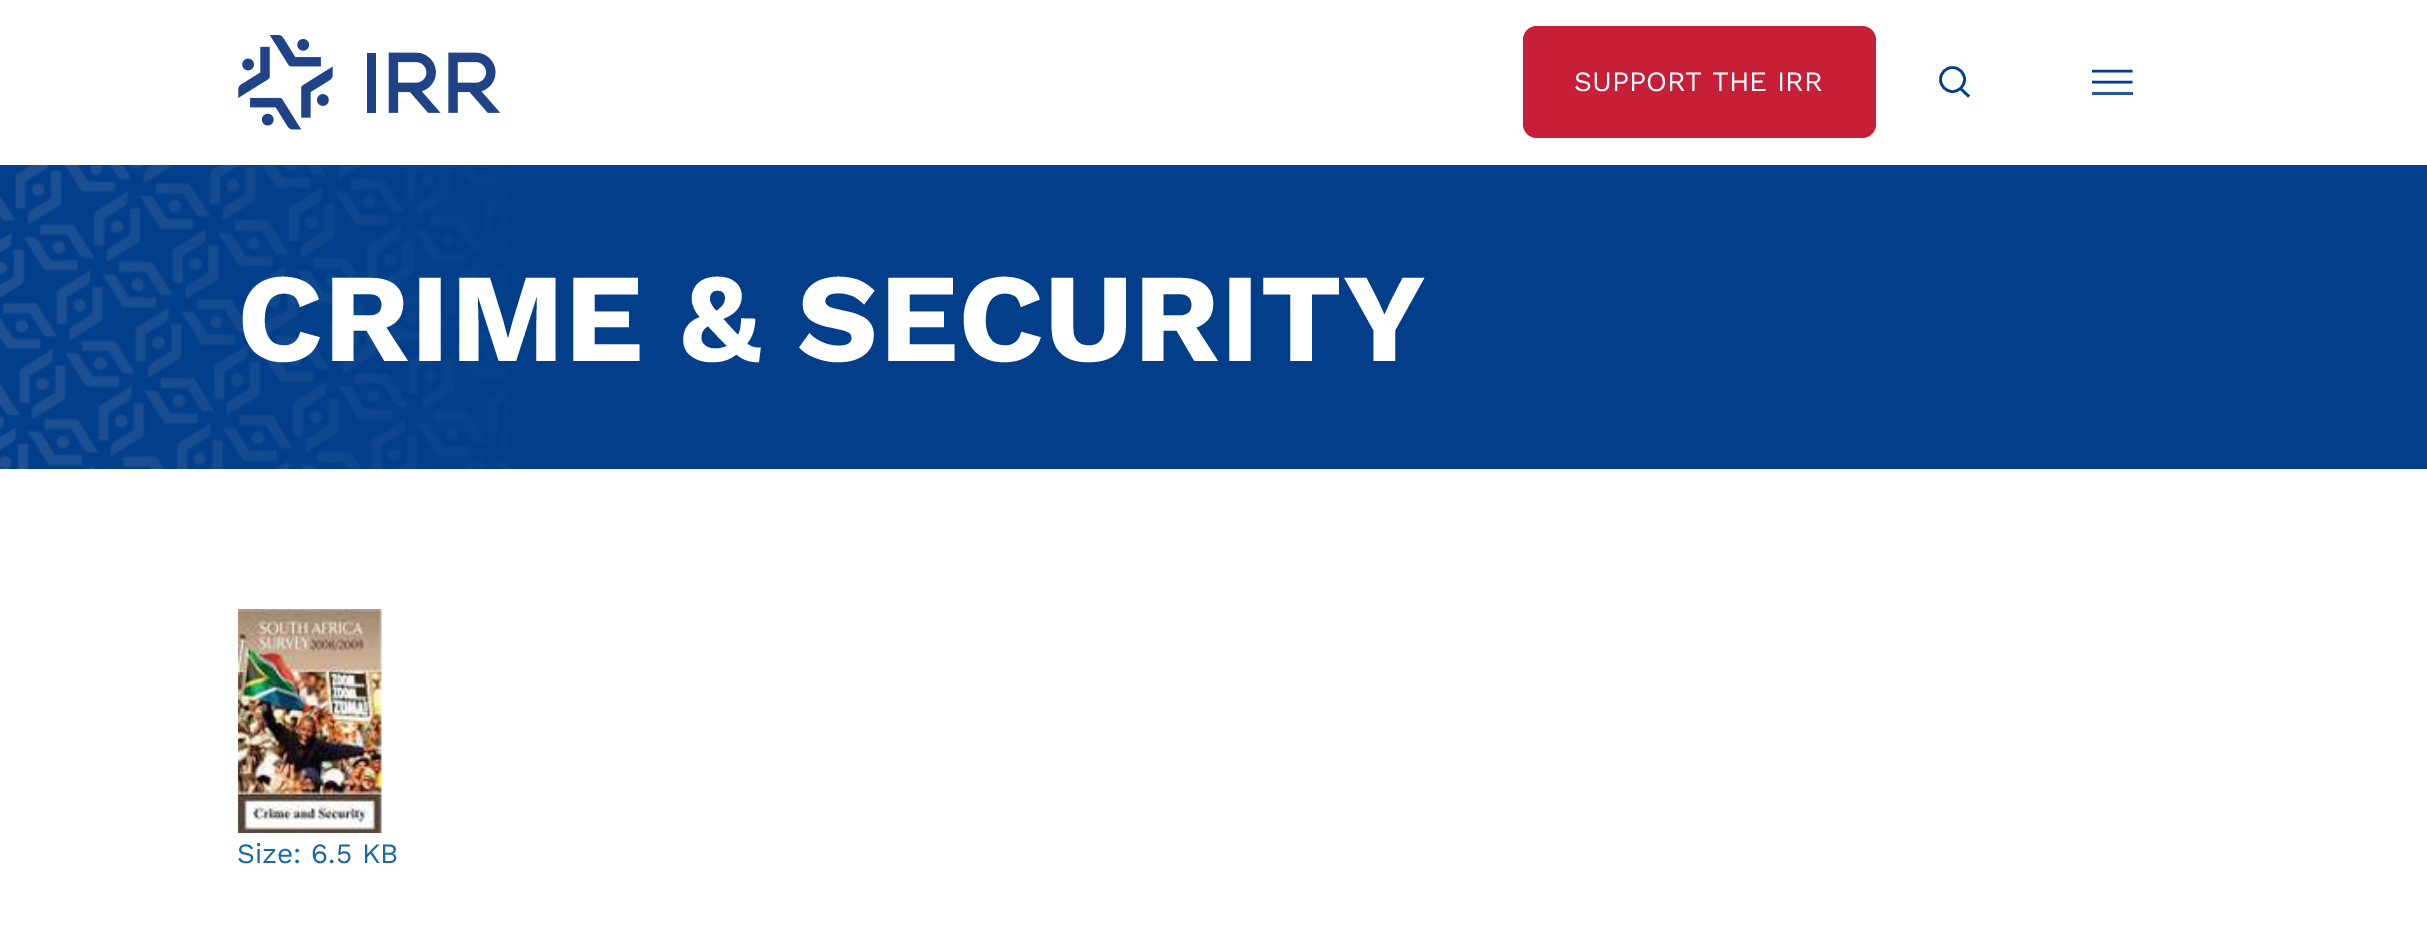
%!PS
<< /PageSize [2427 948] >> setpagedevice
/m/moveto load def
/l/rlineto load def
/f/fill load def
/s/stroke load def
/w/setlinewidth load def
/C { dup -16 bitshift 255 div exch dup -8 bitshift 255 and 255 div exch 255 and 255 div setrgbcolor } def
/F { [ exch dup neg 0 0 3 -1 roll 0 0 ] selectfont } def
/T { moveto show } def
/R { rectfill } def
/O { newpath 0 360 arc closepath } def
/Q { 5 dict begin { /r /h /w /y /x } { exch def } forall
  x r add y moveto x w add y 2 copy h add r arct x w add y h add x 1 index r arct
  x y h add x y r arct x y 2 copy exch w add exch r arct closepath end } def
/I { 5 dict begin { /h /w /y /x /name } { exch def } forall
  gsave x y translate w h scale
  w h 8 [w 0 0 h 0 0] name (r) file false 3 colorimage grestore end } def
0 948 translate 1 -1 scale
4 setmiterlimit
16#FFFFFF C
0 0 2427 948 R
(1.rgb) 238 35 263 95 I
16#C71F37 C
1523 26 353 112 14 Q f
/WorkSans-Regular 28 F
16#FFFFFF C
(SUPPORT THE IRR) 1574 91 T
16#023E8A C
2.6 w
1952.5 79.5 12 O s
1960.5 88.5 m 8.5 8 l s
2092 71 m 40.5 0 l 2092 82 m 40.5 0 l s
16#24589A C
2092 92 41 3 R
16#023E8A C
0 165 2427 304 R
(2.rgb) 0 165 508 304 I
/WorkSans-Bold 126 F
16#FFFFFF C
(CRIME & SECURITY) 237 361 T
(3.rgb) 238 609 144 224 I
/WorkSans-Regular 28 F
16#1769A6 C
(Size: 6.5 KB) 237 863 T
showpage
